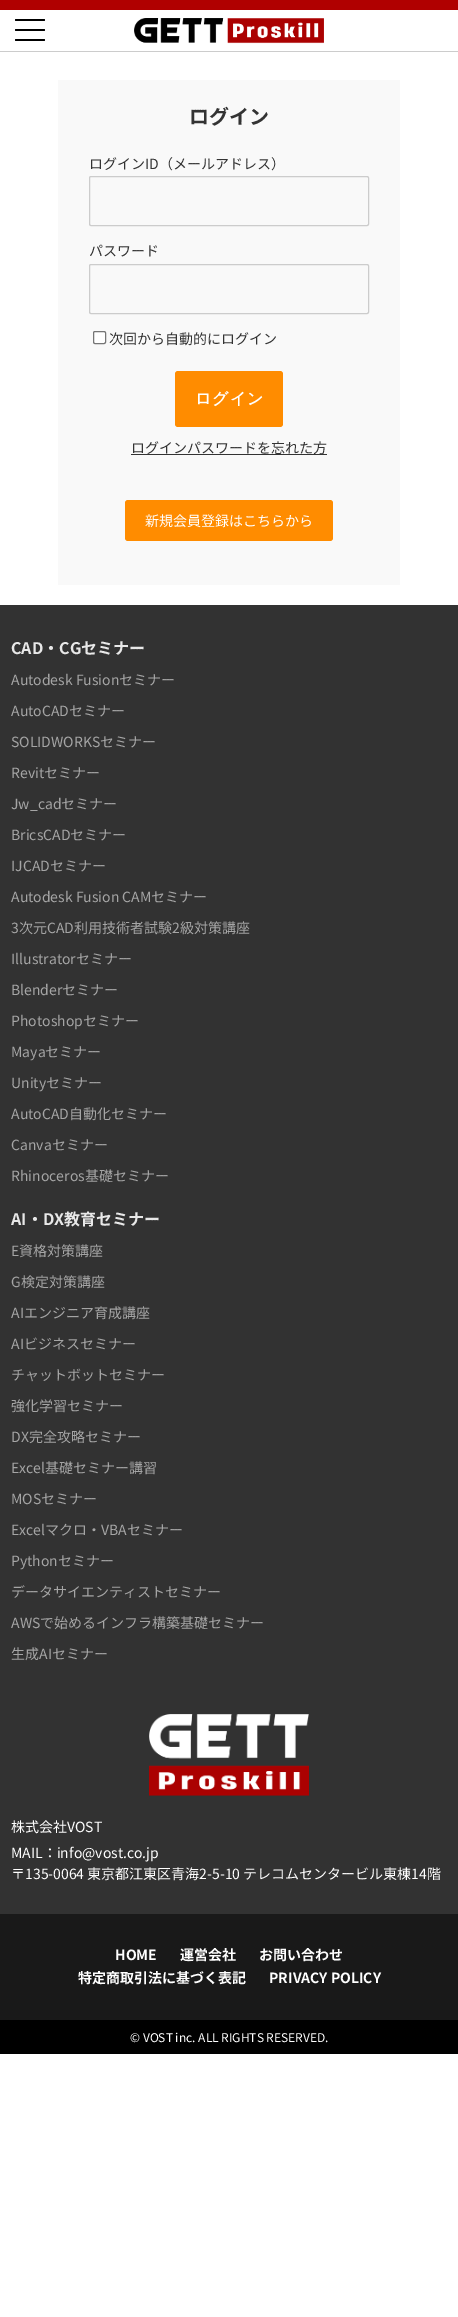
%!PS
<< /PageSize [458 2317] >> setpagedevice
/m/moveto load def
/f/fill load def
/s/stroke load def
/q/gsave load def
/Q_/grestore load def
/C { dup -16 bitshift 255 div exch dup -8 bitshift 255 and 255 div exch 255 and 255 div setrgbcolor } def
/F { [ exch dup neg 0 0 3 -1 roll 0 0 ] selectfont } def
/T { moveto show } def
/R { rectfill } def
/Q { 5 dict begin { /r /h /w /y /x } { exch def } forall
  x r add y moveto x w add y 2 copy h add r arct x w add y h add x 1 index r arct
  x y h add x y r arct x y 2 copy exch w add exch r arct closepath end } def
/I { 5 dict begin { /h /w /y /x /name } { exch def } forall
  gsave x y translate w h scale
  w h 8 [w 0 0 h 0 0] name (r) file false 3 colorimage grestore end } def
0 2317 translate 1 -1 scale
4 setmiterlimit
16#FFFFFF C
0 0 458 2317 R
16#B00000 C
0 0 458 10 R
16#CCCCCC C
0 51 458 1 R
16#000000 C
15 29 30 2 1 Q f
15 19 30 2 1 Q f
15 39 30 2 1 Q f
(1.rgb) 134 18 190 26 I
16#F9F9F9 C
58 80 342 505 R
/NotoSansCJKJP-Bold 20 F
16#333333 C
(ログイン) 189 124 T
/NotoSansCJKJP-Regular 14 F
(ログインID（メールアドレス）) 89 169 T
16#CCCCCC C
89.5 176.5 279 49 1.5 Q s
16#333333 C
(パスワード) 89 256 T
16#CCCCCC C
89.5 264.5 279 49 1.5 Q s
16#FFFFFF C
93.5 331.5 12 12 1.5 Q q f Q_
16#767676 C
s
16#333333 C
(次回から自動的にログイン) 109 344 T
16#FF8C00 C
175 371 108 56 3 Q f
/WenQuanYiZenHei-Bold 16 F
16#FFFFFF C
195 404 m 1 0 (ログイン) ashow
16#333333 C
131 454 196 1 R
/NotoSansCJKJP-Regular 14 F
(ログインパスワードを忘れた方) 131 453 T
16#FF8C00 C
125 500 208 41 3 Q f
16#FFFFFF C
(新規会員登録はこちらから) 145 526 T
16#323232 C
0 605 458 1309 R
/NotoSansCJKJP-Bold 16 F
16#E8E8E8 C
(CAD・CGセミナー) 11 654 T
/NotoSansCJKJP-Regular 14 F
16#A5A5A5 C
(Autodesk Fusionセミナー) 11 685 T
(AutoCADセミナー) 11 716 T
(SOLIDWORKSセミナー) 11 747 T
(Revitセミナー) 11 778 T
(Jw_cadセミナー) 11 809 T
(BricsCADセミナー) 11 840 T
(IJCADセミナー) 11 871 T
(Autodesk Fusion CAMセミナー) 11 902 T
(3次元CAD利用技術者試験2級対策講座) 11 933 T
(Illustratorセミナー) 11 964 T
(Blenderセミナー) 11 995 T
(Photoshopセミナー) 11 1026 T
(Mayaセミナー) 11 1057 T
(Unityセミナー) 11 1088 T
(AutoCAD自動化セミナー) 11 1119 T
(Canvaセミナー) 11 1150 T
(Rhinoceros基礎セミナー) 11 1181 T
/NotoSansCJKJP-Bold 16 F
16#E8E8E8 C
(AI・DX教育セミナー) 11 1225 T
/NotoSansCJKJP-Regular 14 F
16#A5A5A5 C
(E資格対策講座) 11 1256 T
(G検定対策講座) 11 1287 T
(AIエンジニア育成講座) 11 1318 T
(AIビジネスセミナー) 11 1349 T
(チャットボットセミナー) 11 1380 T
(強化学習セミナー) 11 1411 T
(DX完全攻略セミナー) 11 1442 T
(Excel基礎セミナー講習) 11 1473 T
(MOSセミナー) 11 1504 T
(Excelマクロ・VBAセミナー) 11 1535 T
(Pythonセミナー) 11 1566 T
(データサイエンティストセミナー) 11 1597 T
(AWSで始めるインフラ構築基礎セミナー) 11 1628 T
(生成AIセミナー) 11 1659 T
(2.rgb) 149 1714 160 82 I
16#FFFFFF C
(株式会社VOST) 11 1832 T
(MAIL：info@vost.co.jp) 11 1858 T
(〒135-0064 東京都江東区青海2-5-10 テレコムセンタービル東棟14階) 11 1879 T
16#191919 C
0 1914 458 106 R
/NotoSansCJKJP-Bold 14 F
16#FFFFFF C
(HOME) 115 1960 T
(運営会社) 180 1960 T
(お問い合わせ) 259 1960 T
(特定商取引法に基づく表記) 78 1983 T
(PRIVACY POLICY) 269 1983 T
16#000000 C
0 2020 458 34 R
/NotoSansCJKJP-Regular 12 F
16#FFFFFF C
(© VOST inc. ALL RIGHTS RESERVED.) 130 2042 T
showpage
